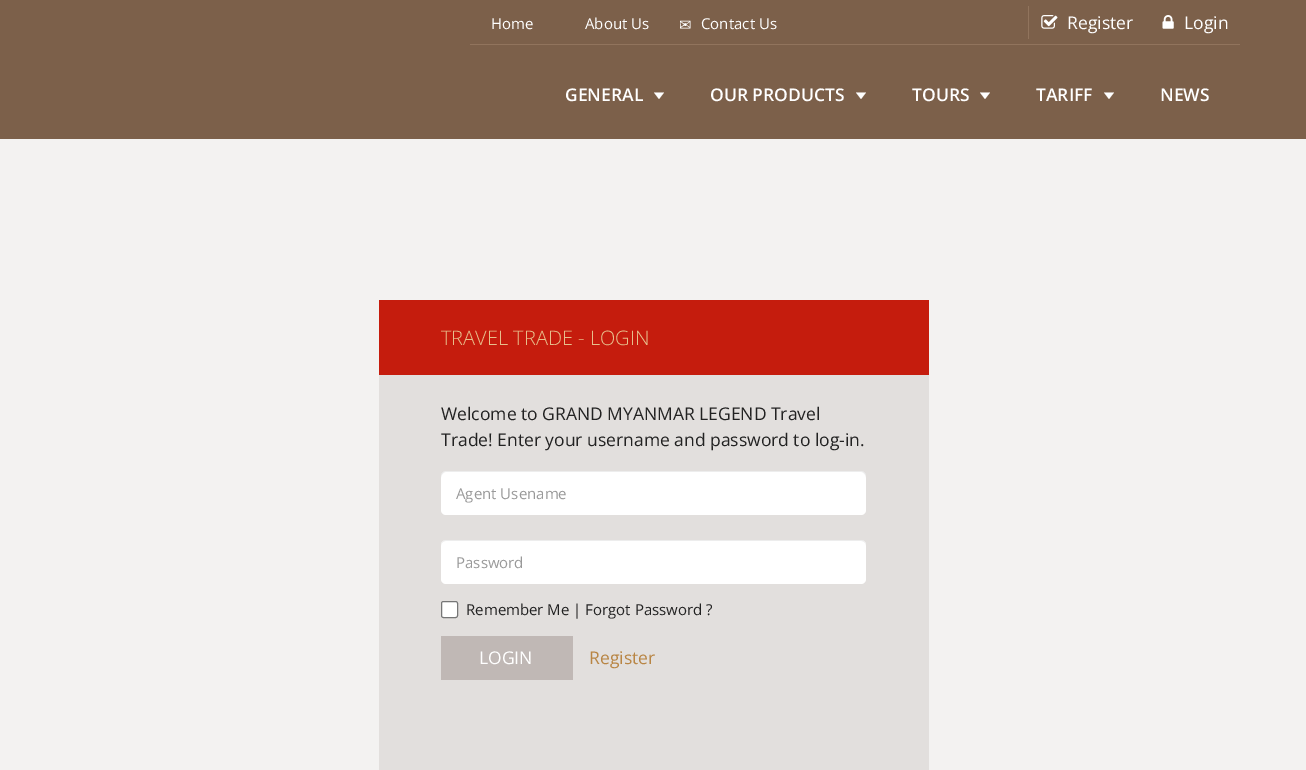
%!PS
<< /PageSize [1306 770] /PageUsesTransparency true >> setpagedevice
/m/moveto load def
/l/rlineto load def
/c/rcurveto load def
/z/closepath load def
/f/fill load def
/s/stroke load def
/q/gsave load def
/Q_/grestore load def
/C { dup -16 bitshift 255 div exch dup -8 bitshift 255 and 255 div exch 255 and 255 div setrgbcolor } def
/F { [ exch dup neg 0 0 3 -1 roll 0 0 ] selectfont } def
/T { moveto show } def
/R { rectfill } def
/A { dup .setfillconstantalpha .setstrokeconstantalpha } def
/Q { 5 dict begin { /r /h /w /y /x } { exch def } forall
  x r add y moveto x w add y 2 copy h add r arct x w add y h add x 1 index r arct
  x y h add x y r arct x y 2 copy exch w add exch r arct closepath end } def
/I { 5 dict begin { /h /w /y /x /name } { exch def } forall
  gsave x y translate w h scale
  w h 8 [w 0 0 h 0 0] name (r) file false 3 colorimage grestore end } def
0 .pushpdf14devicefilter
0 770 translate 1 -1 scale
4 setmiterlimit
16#F3F2F1 C
0 0 1306 770 R
16#7C604A C
0 0 1306 139 R
/OpenSans-Regular 15 F
16#FFFFFF C
(Home) 491 29 T
(About Us) 585 29 T
/DejaVuSans-Regular 15 F
(✉) 679 30 T
/OpenSans-Regular 15 F
(Contact Us) 701 29 T
16#91745D C
1028 6 1 33 R
(1.rgb) 1041 15 17 14 I
/OpenSans-Regular 17.5 F
16#FFFFFF C
(Register) 1067 29 T
(2.rgb) 1162 15 12 14 I
(Login) 1184 29 T
16#91745D C
470 44 770 1 R
/OpenSans-SemiBold 17.5 F
16#FFFFFF C
(GENERAL) 565 101 T
654 92.5 m 10 0 l -5 6.5 l z f
(OUR PRODUCTS) 710 101 T
856 92.5 m 10 0 l -5 6.5 l z f
(TOURS) 912 101 T
980 92.5 m 10 0 l -5 6.5 l z f
(TARIFF) 1036 101 T
1104 92.5 m 10 0 l -5 6.5 l z f
(NEWS) 1160 101 T
16#C51C0D C
379 300 550 75 R
/OpenSans-Light 20 F
16#E7BF8C C
(TRAVEL TRADE - LOGIN) 441 345 T
16#E2DFDD C
379 375 550 395 R
/OpenSans-Regular 17.5 F
16#222222 C
(Welcome to GRAND MYANMAR LEGEND Travel) 441 420 T
(Trade! Enter your username and password to log-in.) 441 446 T
16#FFFFFF C
441 471 425 44 5 Q f
0.07 A
16#000000 C
446 472 m 415 0 l 3 0 5 3 5 6 c 0 -2 l 0 -3 -2 -5 -5 -5 c -415 0 l -3 0 -5 2 -5 5 c 0 2 l 0 -3 2 -6 5 -6 c z f
/OpenSans-Regular 15 F
1 A
16#999999 C
(Agent Usename) 456 499 T
16#FFFFFF C
441 540 425 44 5 Q f
0.07 A
16#000000 C
446 541 m 415 0 l 3 0 5 2 5 5 c 0 -3 -2 -6 -5 -6 c -415 0 l -3 0 -5 3 -5 6 c 0 -3 2 -5 5 -5 c z f
1 A
16#999999 C
(Password) 456 568 T
16#FFFFFF C
441.5 601.5 16 16 2 Q q f Q_
16#767676 C
s
16#222222 C
(Remember Me | Forgot Password ?) 466 615 T
16#C0B8B5 C
441 636 132 44 R
/OpenSans-Regular 17.5 F
16#FFFFFF C
(LOGIN) 479 664 T
16#B88544 C
(Register) 589 664 T
.poppdf14devicefilter showpage
